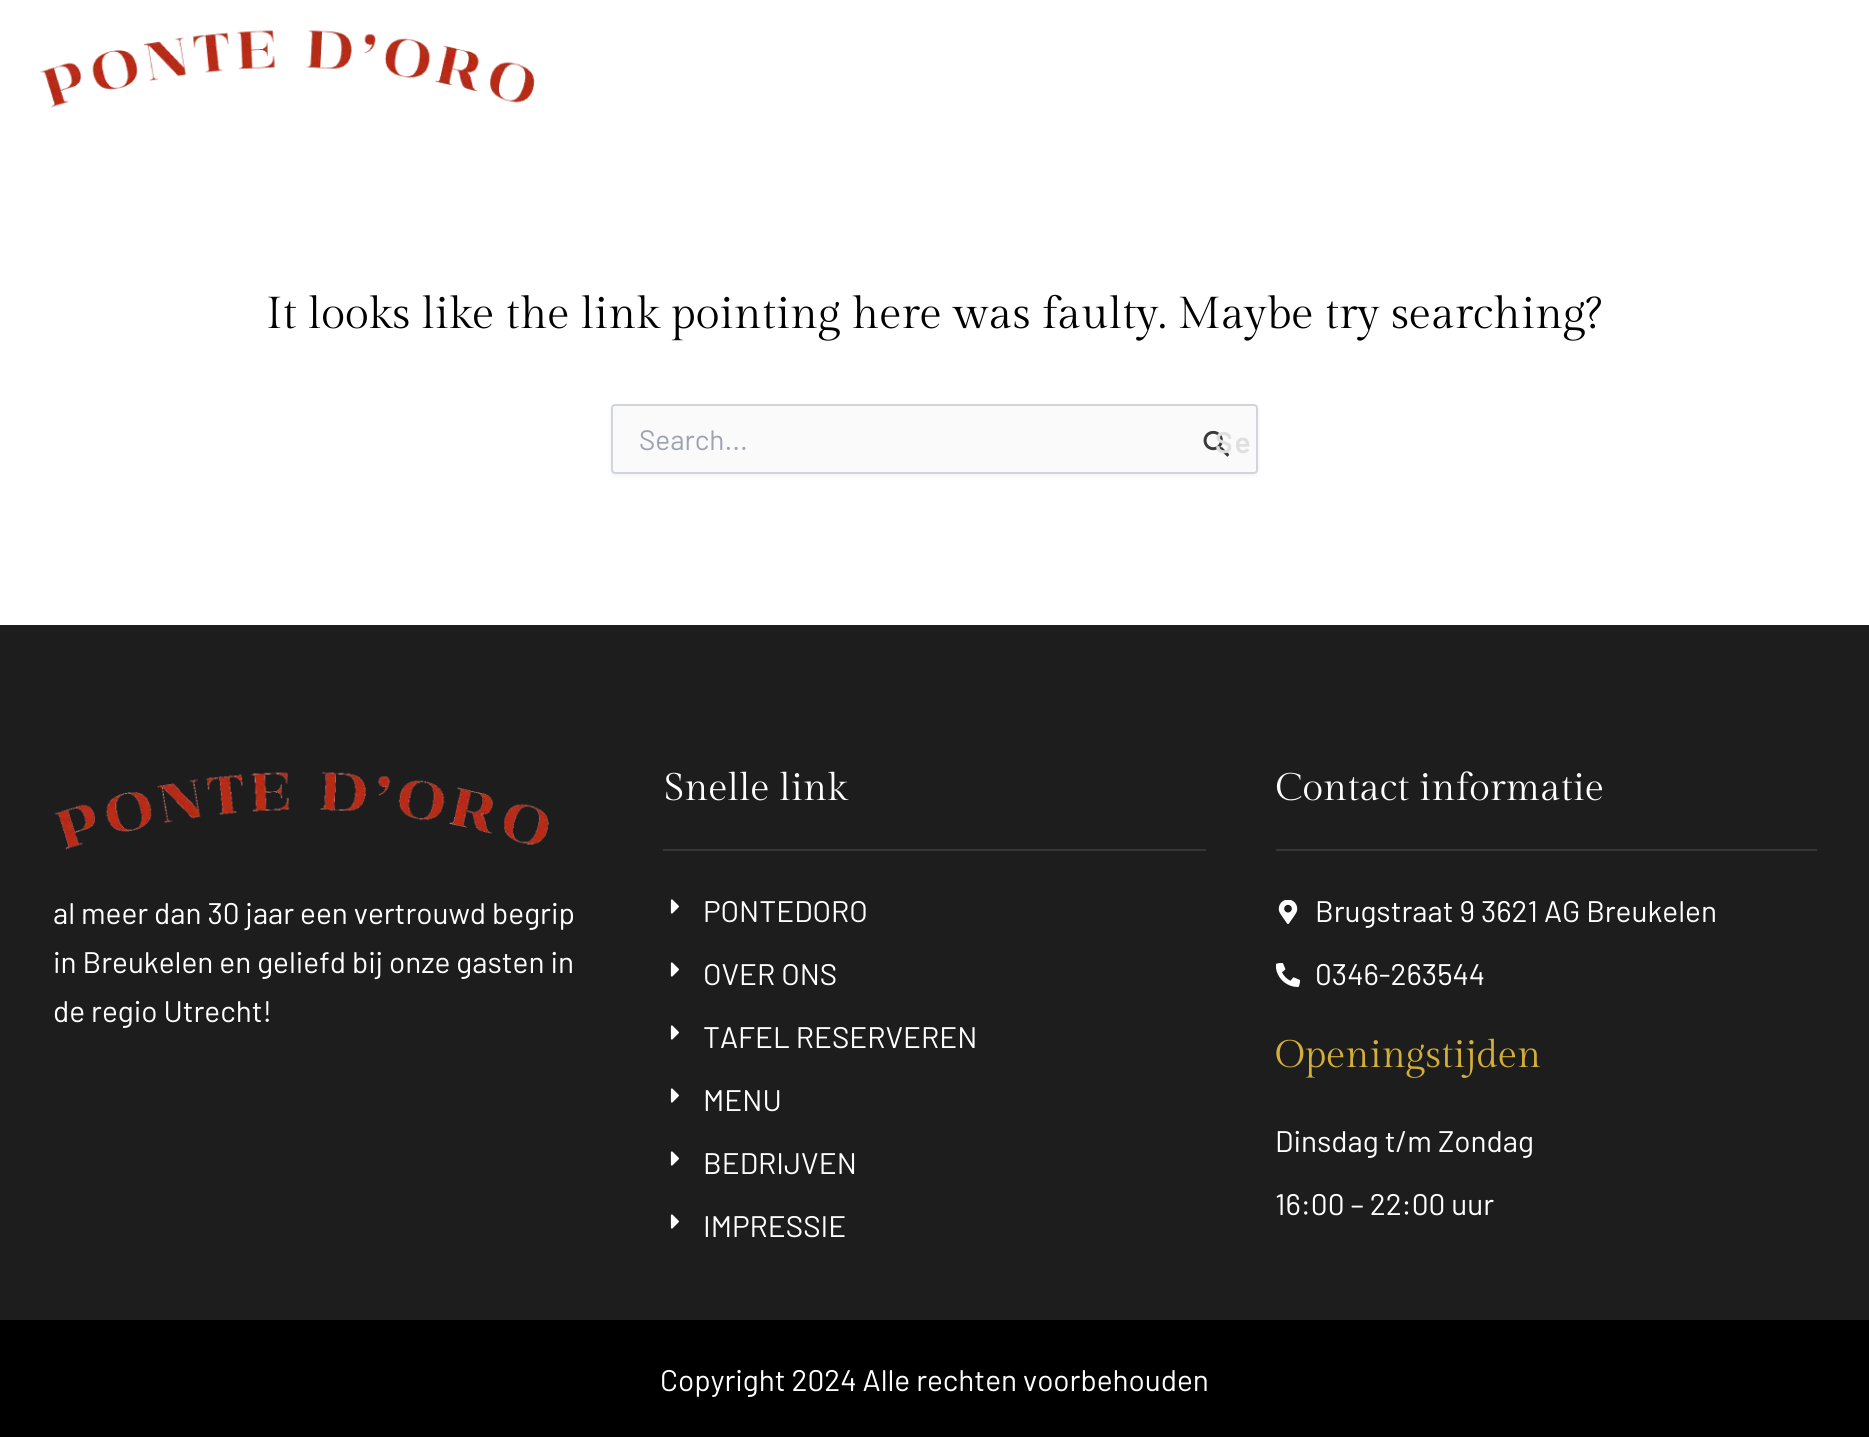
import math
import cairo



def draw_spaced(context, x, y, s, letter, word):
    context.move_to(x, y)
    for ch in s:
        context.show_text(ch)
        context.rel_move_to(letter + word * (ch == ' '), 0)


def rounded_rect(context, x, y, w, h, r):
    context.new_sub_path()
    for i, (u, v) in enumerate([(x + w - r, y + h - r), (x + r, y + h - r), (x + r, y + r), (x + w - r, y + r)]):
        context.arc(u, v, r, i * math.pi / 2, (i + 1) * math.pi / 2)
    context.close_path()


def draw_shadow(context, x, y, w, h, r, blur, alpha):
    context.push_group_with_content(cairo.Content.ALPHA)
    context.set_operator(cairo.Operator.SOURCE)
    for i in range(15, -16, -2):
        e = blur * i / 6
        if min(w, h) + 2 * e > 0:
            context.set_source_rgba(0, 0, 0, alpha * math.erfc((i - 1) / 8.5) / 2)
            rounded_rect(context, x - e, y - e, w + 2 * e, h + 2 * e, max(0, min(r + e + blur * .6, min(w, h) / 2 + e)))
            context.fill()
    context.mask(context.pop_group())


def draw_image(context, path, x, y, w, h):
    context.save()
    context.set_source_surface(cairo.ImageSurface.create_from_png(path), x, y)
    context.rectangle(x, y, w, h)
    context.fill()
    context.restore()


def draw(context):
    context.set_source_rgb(1, 1, 1)
    context.paint()
    draw_image(context, "images/1.png", 40, 30, 495, 78)
    context.set_source_rgb(0, 0, 0)
    draw_shadow(context, 611, 406, 647, 70, 4, 2, 0.05)
    context.set_source_rgb(250 / 255, 250 / 255, 250 / 255)
    rounded_rect(context, 612, 405, 645, 68, 3)
    context.fill_preserve()
    context.set_source_rgb(209 / 255, 213 / 255, 219 / 255)
    context.stroke()
    draw_image(context, "images/2.png", 1203, 431, 26, 26)
    context.set_source_rgb(29 / 255, 29 / 255, 29 / 255)
    context.rectangle(0, 625, 1869, 695)
    context.fill()
    draw_image(context, "images/3.png", 54, 771, 495, 79)
    context.set_source_rgb(54 / 255, 54 / 255, 54 / 255)
    context.rectangle(663, 849, 543, 2)
    context.fill()
    draw_image(context, "images/4.png", 670, 899, 9, 15)
    draw_image(context, "images/4.png", 670, 962, 9, 15)
    draw_image(context, "images/4.png", 670, 1025, 9, 15)
    draw_image(context, "images/4.png", 670, 1088, 9, 15)
    draw_image(context, "images/4.png", 670, 1151, 9, 15)
    draw_image(context, "images/4.png", 670, 1214, 9, 15)
    context.rectangle(1276, 849, 541, 2)
    context.fill()
    draw_image(context, "images/5.png", 1278, 900, 20, 24)
    draw_image(context, "images/6.png", 1276, 963, 24, 24)
    context.set_source_rgb(0, 0, 0)
    context.rectangle(0, 1320, 1869, 117)
    context.fill()
    context.select_font_face("Gilda Display")
    context.set_font_size(44.6)
    context.move_to(266, 328)
    context.show_text("It looks like the link pointing here was faulty. Maybe try searching?")
    context.select_font_face("Barlow")
    context.set_font_size(28)
    context.set_source_rgb(156 / 255, 163 / 255, 175 / 255)
    context.move_to(639, 450)
    context.show_text("Search...")
    context.select_font_face("Barlow SemiBold")
    context.set_font_size(29.75)
    context.set_source_rgb(223 / 255, 223 / 255, 223 / 255)
    draw_spaced(context, 1215, 453, "Se", 2, 0)
    context.select_font_face("Barlow")
    context.set_source_rgb(1, 1, 1)
    context.move_to(53, 924)
    context.show_text("al meer dan 30 jaar een vertrouwd begrip")
    context.move_to(53, 973)
    context.show_text("in Breukelen en geliefd bij onze gasten in")
    context.move_to(53, 1022)
    context.show_text("de regio Utrecht!")
    context.select_font_face("Gilda Display")
    context.set_font_size(38.5)
    context.move_to(664, 800)
    context.show_text("Snelle link")
    context.select_font_face("Barlow")
    context.set_font_size(29.75)
    context.move_to(703, 922)
    context.show_text("PONTEDORO")
    context.move_to(703, 985)
    context.show_text("OVER ONS")
    context.move_to(703, 1048)
    context.show_text("TAFEL RESERVEREN")
    context.move_to(703, 1111)
    context.show_text("MENU")
    context.move_to(703, 1174)
    context.show_text("BEDRIJVEN")
    context.move_to(703, 1237)
    context.show_text("IMPRESSIE")
    context.select_font_face("Gilda Display")
    context.set_font_size(38.5)
    context.move_to(1275, 800)
    context.show_text("Contact informatie")
    context.select_font_face("Barlow")
    context.set_font_size(29.75)
    context.move_to(1315, 922)
    context.show_text("Brugstraat 9 3621 AG Breukelen")
    context.move_to(1315, 985)
    context.show_text("0346-263544")
    context.select_font_face("Gilda Display")
    context.set_font_size(38.5)
    context.set_source_rgb(212 / 255, 175 / 255, 56 / 255)
    context.move_to(1275, 1067)
    context.show_text("Openingstijden")
    context.select_font_face("Barlow")
    context.set_font_size(29.75)
    context.set_source_rgb(1, 1, 1)
    context.move_to(1275, 1152)
    context.show_text("Dinsdag t/m Zondag")
    context.move_to(1275, 1215)
    context.show_text("16:00 – 22:00 uur")
    context.move_to(660, 1391)
    context.show_text("Copyright 2024 Alle rechten voorbehouden")


surface = cairo.ImageSurface(cairo.Format.RGB24, 1869, 1437)
context = cairo.Context(surface)
options = cairo.FontOptions()
options.set_hint_metrics(cairo.HintMetrics.OFF)
options.set_hint_style(cairo.HintStyle.NONE)
context.set_font_options(options)
context.set_miter_limit(4)
draw(context)
surface.write_to_png("out.png")
